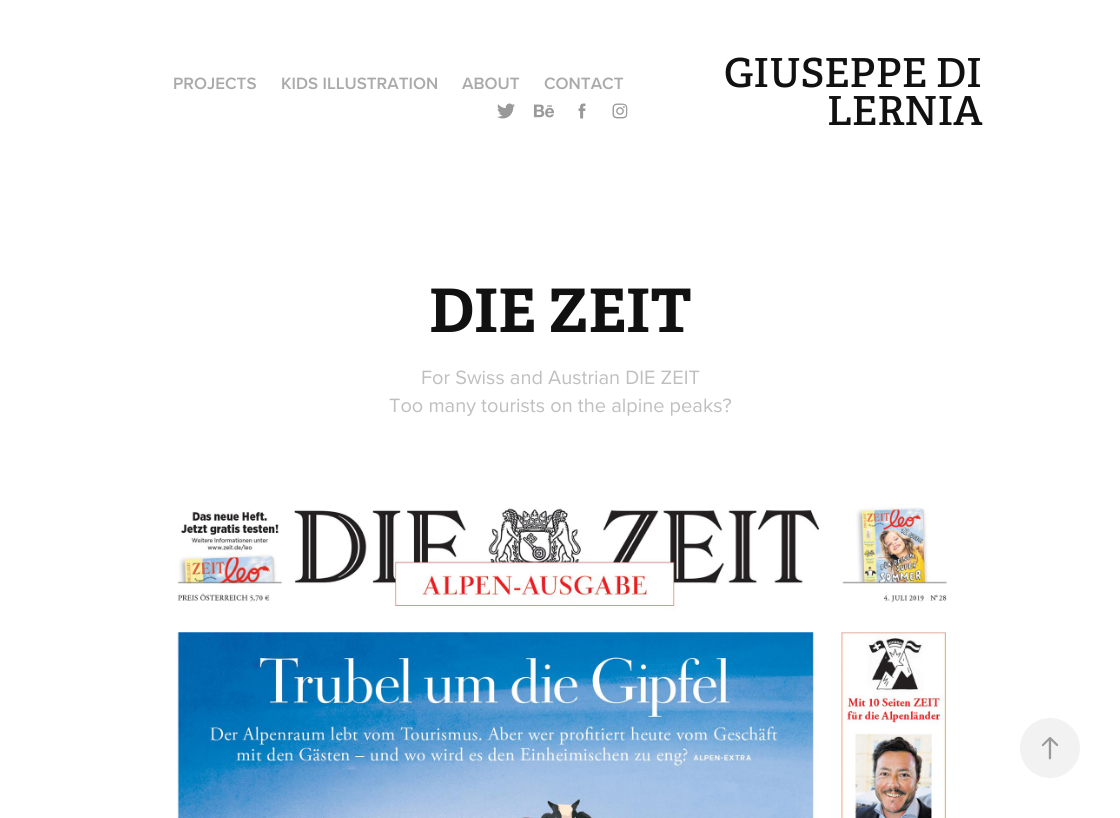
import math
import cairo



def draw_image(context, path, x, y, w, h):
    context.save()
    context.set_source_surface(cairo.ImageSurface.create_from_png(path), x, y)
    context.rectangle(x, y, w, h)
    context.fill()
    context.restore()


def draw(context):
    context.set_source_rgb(1, 1, 1)
    context.paint()
    draw_image(context, "images/1.png", 497, 103, 18, 16)
    draw_image(context, "images/2.png", 533, 104, 21, 14)
    draw_image(context, "images/3.png", 578, 103, 8, 16)
    draw_image(context, "images/4.png", 612, 103, 16, 16)
    draw_image(context, "images/5.png", 177, 507, 770, 311)
    context.set_source_rgb(242 / 255, 242 / 255, 242 / 255)
    context.arc(1050, 748, 30, 0, 2 * math.pi)
    context.fill()
    draw_image(context, "images/6.png", 1041, 737, 18, 23)
    context.select_font_face("Proxima Nova SemiBold")
    context.set_font_size(17)
    context.set_source_rgb(170 / 255, 170 / 255, 170 / 255)
    context.move_to(173, 89)
    context.show_text("PROJECTS")
    context.move_to(281, 89)
    context.show_text("KIDS ILLUSTRATION")
    context.move_to(462, 89)
    context.show_text("ABOUT")
    context.move_to(544, 89)
    context.show_text("CONTACT")
    context.select_font_face("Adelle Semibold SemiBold")
    context.set_font_size(40)
    context.set_source_rgb(17 / 255, 17 / 255, 17 / 255)
    context.move_to(724, 87)
    context.show_text("GIUSEPPE DI")
    context.move_to(827, 125)
    context.show_text("LERNIA")
    context.select_font_face("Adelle", cairo.FontSlant.NORMAL, cairo.FontWeight.BOLD)
    context.set_font_size(60)
    context.move_to(429, 332)
    context.show_text("DIE ZEIT")
    context.select_font_face("Proxima Nova")
    context.set_font_size(20)
    context.set_source_rgb(191 / 255, 191 / 255, 191 / 255)
    context.move_to(421, 384)
    context.show_text("For Swiss and Austrian DIE ZEIT")
    context.move_to(389, 412)
    context.show_text("Too many tourists on the alpine peaks?")


surface = cairo.ImageSurface(cairo.Format.RGB24, 1120, 818)
context = cairo.Context(surface)
options = cairo.FontOptions()
options.set_hint_metrics(cairo.HintMetrics.OFF)
options.set_hint_style(cairo.HintStyle.NONE)
context.set_font_options(options)
context.set_miter_limit(4)
draw(context)
surface.write_to_png("out.png")
